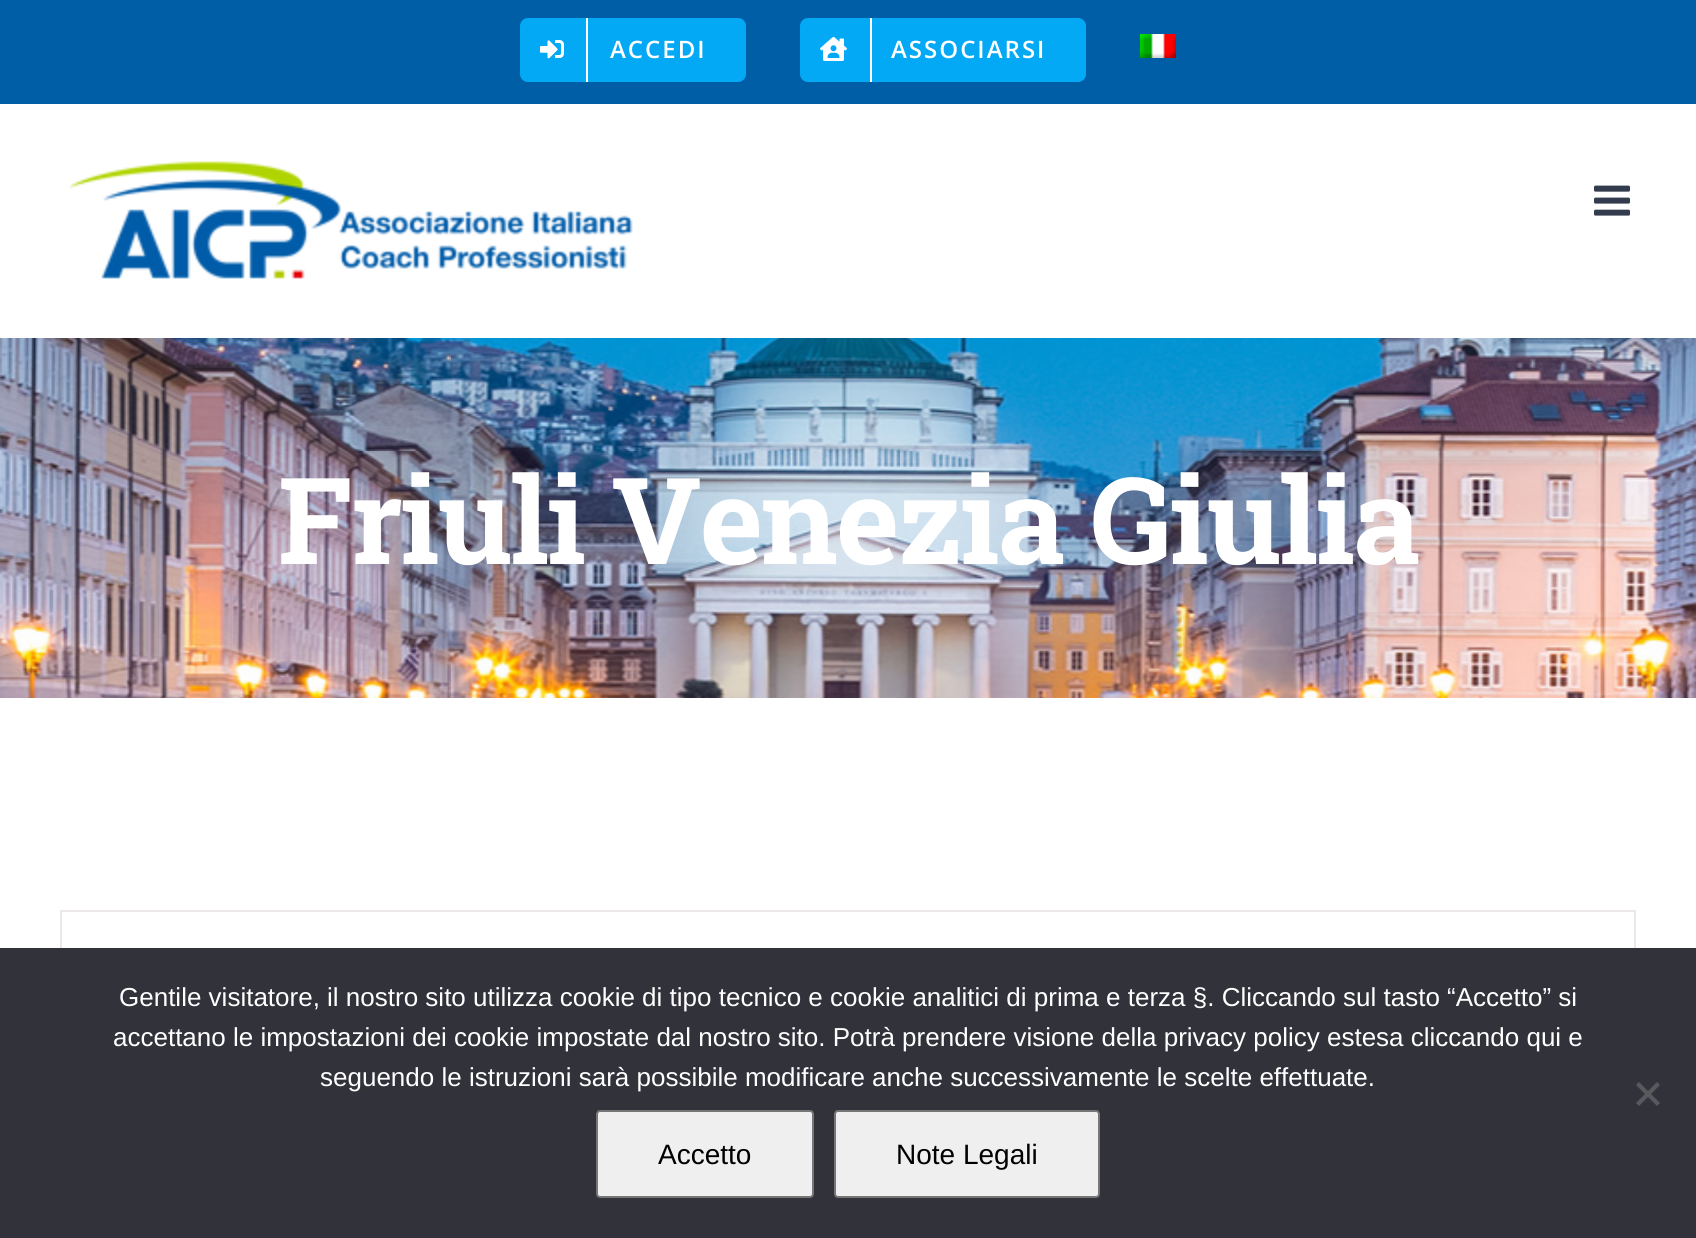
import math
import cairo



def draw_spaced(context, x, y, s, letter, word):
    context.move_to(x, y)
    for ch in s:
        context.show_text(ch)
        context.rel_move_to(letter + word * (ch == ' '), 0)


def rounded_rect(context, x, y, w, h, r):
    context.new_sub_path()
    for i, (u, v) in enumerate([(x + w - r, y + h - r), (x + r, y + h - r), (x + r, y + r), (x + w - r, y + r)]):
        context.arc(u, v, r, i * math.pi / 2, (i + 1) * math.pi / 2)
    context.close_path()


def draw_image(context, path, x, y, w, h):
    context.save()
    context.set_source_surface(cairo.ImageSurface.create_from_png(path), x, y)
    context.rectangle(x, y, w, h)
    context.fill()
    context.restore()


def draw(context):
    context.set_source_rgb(1, 1, 1)
    context.paint()
    context.set_source_rgb(0, 94 / 255, 167 / 255)
    context.rectangle(0, 0, 1696, 104)
    context.fill()
    context.set_source_rgb(3 / 255, 169 / 255, 244 / 255)
    rounded_rect(context, 520, 18, 226, 64, 8)
    context.fill()
    context.set_source_rgb(1, 1, 1)
    context.rectangle(586, 18, 2, 64)
    context.fill()
    draw_image(context, "images/1.png", 540, 40, 24, 19)
    context.set_source_rgb(3 / 255, 169 / 255, 244 / 255)
    rounded_rect(context, 800, 18, 286, 64, 8)
    context.fill()
    context.set_source_rgb(1, 1, 1)
    context.rectangle(870, 18, 2, 64)
    context.fill()
    draw_image(context, "images/2.png", 820, 37, 27, 24)
    draw_image(context, "images/3.png", 1140, 34, 36, 24)
    draw_image(context, "images/4.png", 69, 161, 564, 118)
    draw_image(context, "images/5.png", 1594, 185, 36, 31)
    draw_image(context, "images/6.png", 0, 338, 1696, 360)
    context.rectangle(61, 911, 1574, 108)
    context.set_source_rgb(237 / 255, 232 / 255, 232 / 255)
    context.stroke()
    context.set_source_rgb(50 / 255, 50 / 255, 58 / 255)
    context.rectangle(0, 948, 1696, 290)
    context.fill()
    context.set_source_rgb(89 / 255, 89 / 255, 93 / 255)
    context.new_path()
    context.move_to(1657, 1082)
    context.line_to(1660, 1085)
    context.line_to(1639, 1106)
    context.line_to(1636, 1103)
    context.close_path()
    context.fill()
    context.new_path()
    context.move_to(1636, 1085)
    context.line_to(1639, 1082)
    context.line_to(1660, 1103)
    context.line_to(1657, 1106)
    context.close_path()
    context.fill()
    context.set_source_rgb(239 / 255, 239 / 255, 239 / 255)
    rounded_rect(context, 597, 1111, 216, 86, 3)
    context.fill_preserve()
    context.set_source_rgb(118 / 255, 118 / 255, 118 / 255)
    context.stroke()
    context.set_source_rgb(239 / 255, 239 / 255, 239 / 255)
    rounded_rect(context, 835, 1111, 264, 86, 3)
    context.fill_preserve()
    context.set_source_rgb(118 / 255, 118 / 255, 118 / 255)
    context.stroke()
    context.select_font_face("Open Sans SemiBold")
    context.set_font_size(24)
    context.set_source_rgb(1, 1, 1)
    draw_spaced(context, 610, 58, "ACCEDI", 2, 0)
    draw_spaced(context, 891, 58, "ASSOCIARSI", 2, 0)
    context.select_font_face("Roboto Slab", cairo.FontSlant.NORMAL, cairo.FontWeight.BOLD)
    context.set_font_size(120.5)
    draw_spaced(context, 278, 564, "Friuli Venezia Giulia", -2, 0)
    context.select_font_face("Liberation Sans")
    context.set_font_size(26)
    context.move_to(119, 1006)
    context.show_text("Gentile visitatore, il nostro sito utilizza cookie di tipo tecnico e cookie analitici di prima e terza §. Cliccando sul tasto “Accetto” si")
    context.move_to(113, 1046)
    context.show_text("accettano le impostazioni dei cookie impostate dal nostro sito. Potrà prendere visione della privacy policy estesa cliccando qui e")
    context.move_to(320, 1086)
    context.show_text("seguendo le istruzioni sarà possibile modificare anche successivamente le scelte effettuate.")
    context.set_font_size(28)
    context.set_source_rgb(0, 0, 0)
    context.move_to(658, 1164)
    context.show_text("Accetto")
    context.move_to(896, 1164)
    context.show_text("Note Legali")


surface = cairo.ImageSurface(cairo.Format.RGB24, 1696, 1238)
context = cairo.Context(surface)
options = cairo.FontOptions()
options.set_hint_metrics(cairo.HintMetrics.OFF)
options.set_hint_style(cairo.HintStyle.NONE)
context.set_font_options(options)
context.set_miter_limit(4)
draw(context)
surface.write_to_png("out.png")
